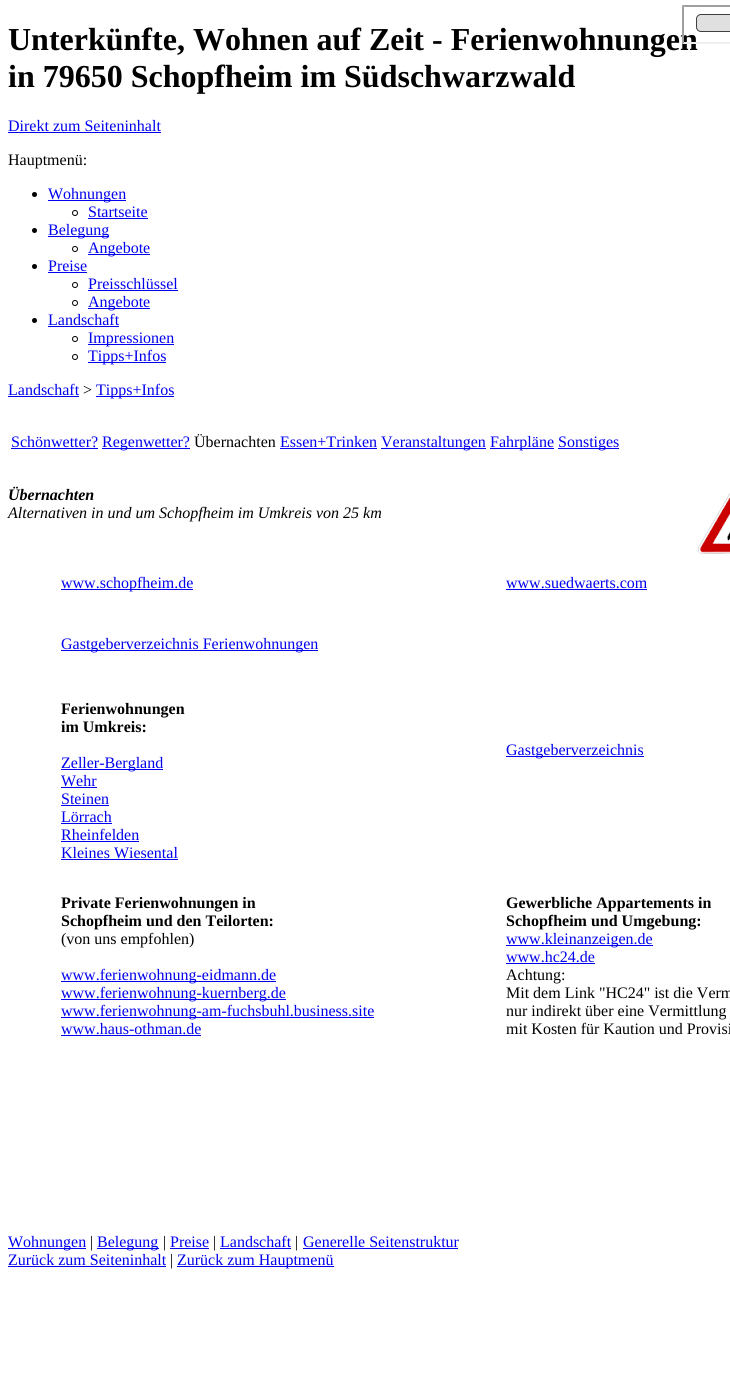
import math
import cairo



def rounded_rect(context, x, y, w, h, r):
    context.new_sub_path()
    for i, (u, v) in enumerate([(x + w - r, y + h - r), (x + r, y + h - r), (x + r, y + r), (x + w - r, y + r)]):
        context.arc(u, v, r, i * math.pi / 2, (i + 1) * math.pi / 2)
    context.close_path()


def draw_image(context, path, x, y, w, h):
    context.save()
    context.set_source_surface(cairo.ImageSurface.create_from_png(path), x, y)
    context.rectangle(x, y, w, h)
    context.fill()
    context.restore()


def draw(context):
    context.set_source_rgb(1, 1, 1)
    context.paint()
    context.set_source_rgb(159 / 255, 159 / 255, 159 / 255)
    context.new_path()
    context.move_to(682, 5)
    context.line_to(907, 5)
    context.line_to(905, 7)
    context.line_to(684, 7)
    context.close_path()
    context.fill()
    context.set_source_rgb(0, 0, 238 / 255)
    context.rectangle(8, 132, 153, 1)
    context.fill()
    context.set_source_rgb(0, 0, 0)
    context.arc(34.5, 194.5, 2.5, 0, 2 * math.pi)
    context.fill()
    context.set_source_rgb(0, 0, 238 / 255)
    context.rectangle(48, 200, 78, 1)
    context.fill()
    context.arc(75, 213, 2.5, 0, 2 * math.pi)
    context.set_source_rgb(0, 0, 0)
    context.set_line_width(1)
    context.stroke()
    context.set_source_rgb(0, 0, 238 / 255)
    context.rectangle(88, 218, 60, 1)
    context.fill()
    context.set_source_rgb(0, 0, 0)
    context.arc(34.5, 230.5, 2.5, 0, 2 * math.pi)
    context.fill()
    context.set_source_rgb(0, 0, 238 / 255)
    context.rectangle(48, 236, 61, 1)
    context.fill()
    context.arc(75, 249, 2.5, 0, 2 * math.pi)
    context.set_source_rgb(0, 0, 0)
    context.stroke()
    context.set_source_rgb(0, 0, 238 / 255)
    context.rectangle(88, 254, 62, 1)
    context.fill()
    context.set_source_rgb(0, 0, 0)
    context.arc(34.5, 266.5, 2.5, 0, 2 * math.pi)
    context.fill()
    context.set_source_rgb(0, 0, 238 / 255)
    context.rectangle(48, 272, 39, 1)
    context.fill()
    context.arc(75, 285, 2.5, 0, 2 * math.pi)
    context.set_source_rgb(0, 0, 0)
    context.stroke()
    context.set_source_rgb(0, 0, 238 / 255)
    context.rectangle(88, 290, 90, 1)
    context.fill()
    context.arc(75, 303, 2.5, 0, 2 * math.pi)
    context.set_source_rgb(0, 0, 0)
    context.stroke()
    context.set_source_rgb(0, 0, 238 / 255)
    context.rectangle(88, 308, 62, 1)
    context.fill()
    context.set_source_rgb(0, 0, 0)
    context.arc(34.5, 320.5, 2.5, 0, 2 * math.pi)
    context.fill()
    context.set_source_rgb(0, 0, 238 / 255)
    context.rectangle(48, 326, 71, 1)
    context.fill()
    context.arc(75, 339, 2.5, 0, 2 * math.pi)
    context.set_source_rgb(0, 0, 0)
    context.stroke()
    context.set_source_rgb(0, 0, 238 / 255)
    context.rectangle(88, 344, 86, 1)
    context.fill()
    context.arc(75, 357, 2.5, 0, 2 * math.pi)
    context.set_source_rgb(0, 0, 0)
    context.stroke()
    context.set_source_rgb(0, 0, 238 / 255)
    context.rectangle(88, 362, 78, 1)
    context.fill()
    context.rectangle(8, 396, 71, 1)
    context.fill()
    context.rectangle(96, 396, 78, 1)
    context.fill()
    context.rectangle(11, 448, 87, 1)
    context.fill()
    context.rectangle(102, 448, 88, 1)
    context.fill()
    context.rectangle(280, 448, 97, 1)
    context.fill()
    context.rectangle(381, 448, 105, 1)
    context.fill()
    context.rectangle(490, 448, 64, 1)
    context.fill()
    context.rectangle(558, 448, 61, 1)
    context.fill()
    draw_image(context, "images/1.png", 698, 493, 32, 61)
    context.rectangle(61, 589, 132, 1)
    context.fill()
    context.rectangle(61, 650, 257, 1)
    context.fill()
    context.rectangle(61, 769, 102, 1)
    context.fill()
    context.rectangle(61, 787, 36, 1)
    context.fill()
    context.rectangle(61, 805, 48, 1)
    context.fill()
    context.rectangle(61, 823, 51, 1)
    context.fill()
    context.rectangle(61, 841, 78, 1)
    context.fill()
    context.rectangle(61, 859, 117, 1)
    context.fill()
    context.rectangle(506, 589, 141, 1)
    context.fill()
    context.rectangle(506, 756, 138, 1)
    context.fill()
    context.rectangle(61, 981, 215, 1)
    context.fill()
    context.rectangle(61, 999, 225, 1)
    context.fill()
    context.rectangle(61, 1017, 313, 1)
    context.fill()
    context.rectangle(61, 1035, 140, 1)
    context.fill()
    context.rectangle(506, 945, 147, 1)
    context.fill()
    context.rectangle(506, 963, 89, 1)
    context.fill()
    context.rectangle(8, 1248, 78, 1)
    context.fill()
    context.rectangle(97, 1248, 62, 1)
    context.fill()
    context.rectangle(170, 1248, 39, 1)
    context.fill()
    context.rectangle(220, 1248, 71, 1)
    context.fill()
    context.rectangle(303, 1248, 155, 1)
    context.fill()
    context.rectangle(8, 1266, 158, 1)
    context.fill()
    context.rectangle(177, 1266, 157, 1)
    context.fill()
    context.select_font_face("Liberation Serif", cairo.FontSlant.NORMAL, cairo.FontWeight.BOLD)
    context.set_font_size(32)
    context.set_source_rgb(0, 0, 0)
    context.move_to(8, 50)
    context.show_text("Unterkünfte, Wohnen auf Zeit - Ferienwohnungen")
    context.move_to(8, 87)
    context.show_text("in 79650 Schopfheim im Südschwarzwald")
    context.set_source_rgb(239 / 255, 239 / 255, 239 / 255)
    context.new_path()
    context.move_to(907, 44)
    context.line_to(682, 44)
    context.line_to(684, 42)
    context.line_to(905, 42)
    context.close_path()
    context.fill()
    context.set_source_rgb(159 / 255, 159 / 255, 159 / 255)
    context.new_path()
    context.move_to(682, 44)
    context.line_to(682, 5)
    context.line_to(684, 7)
    context.line_to(684, 42)
    context.close_path()
    context.fill()
    context.set_source_rgb(224 / 255, 224 / 255, 224 / 255)
    rounded_rect(context, 696.5, 14.5, 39, 17, 4.5)
    context.fill_preserve()
    context.set_source_rgb(64 / 255, 64 / 255, 64 / 255)
    context.stroke()
    context.select_font_face("Liberation Serif")
    context.set_font_size(16)
    context.set_source_rgb(0, 0, 238 / 255)
    context.move_to(8, 131)
    context.show_text("Direkt zum Seiteninhalt")
    context.set_source_rgb(0, 0, 0)
    context.move_to(8, 165)
    context.show_text("Hauptmenü:")
    context.set_source_rgb(0, 0, 238 / 255)
    context.move_to(48, 199)
    context.show_text("Wohnungen")
    context.move_to(88, 217)
    context.show_text("Startseite")
    context.move_to(48, 235)
    context.show_text("Belegung")
    context.move_to(88, 253)
    context.show_text("Angebote")
    context.move_to(48, 271)
    context.show_text("Preise")
    context.move_to(88, 289)
    context.show_text("Preisschlüssel")
    context.move_to(88, 307)
    context.show_text("Angebote")
    context.move_to(48, 325)
    context.show_text("Landschaft")
    context.move_to(88, 343)
    context.show_text("Impressionen")
    context.move_to(88, 361)
    context.show_text("Tipps+Infos")
    context.move_to(8, 395)
    context.show_text("Landschaft")
    context.set_source_rgb(0, 0, 0)
    context.move_to(83, 395)
    context.show_text(">")
    context.set_source_rgb(0, 0, 238 / 255)
    context.move_to(96, 395)
    context.show_text("Tipps+Infos")
    context.move_to(11, 447)
    context.show_text("Schönwetter?")
    context.move_to(102, 447)
    context.show_text("Regenwetter?")
    context.set_source_rgb(0, 0, 0)
    context.move_to(194, 447)
    context.show_text("Übernachten")
    context.set_source_rgb(0, 0, 238 / 255)
    context.move_to(280, 447)
    context.show_text("Essen+Trinken")
    context.move_to(381, 447)
    context.show_text("Veranstaltungen")
    context.move_to(490, 447)
    context.show_text("Fahrpläne")
    context.move_to(558, 447)
    context.show_text("Sonstiges")
    context.select_font_face("Liberation Serif", cairo.FontSlant.ITALIC, cairo.FontWeight.BOLD)
    context.set_source_rgb(0, 0, 0)
    context.move_to(8, 500)
    context.show_text("Übernachten")
    context.select_font_face("Liberation Serif", cairo.FontSlant.ITALIC)
    context.move_to(8, 518)
    context.show_text("Alternativen in und um Schopfheim im Umkreis von 25 km")
    context.select_font_face("Liberation Serif")
    context.set_source_rgb(0, 0, 238 / 255)
    context.move_to(61, 588)
    context.show_text("www.schopfheim.de")
    context.move_to(61, 649)
    context.show_text("Gastgeberverzeichnis Ferienwohnungen")
    context.select_font_face("Liberation Serif", cairo.FontSlant.NORMAL, cairo.FontWeight.BOLD)
    context.set_source_rgb(0, 0, 0)
    context.move_to(61, 714)
    context.show_text("Ferienwohnungen")
    context.move_to(61, 732)
    context.show_text("im Umkreis:")
    context.select_font_face("Liberation Serif")
    context.set_source_rgb(0, 0, 238 / 255)
    context.move_to(61, 768)
    context.show_text("Zeller-Bergland")
    context.move_to(61, 786)
    context.show_text("Wehr")
    context.move_to(61, 804)
    context.show_text("Steinen")
    context.move_to(61, 822)
    context.show_text("Lörrach")
    context.move_to(61, 840)
    context.show_text("Rheinfelden")
    context.move_to(61, 858)
    context.show_text("Kleines Wiesental")
    context.move_to(506, 588)
    context.show_text("www.suedwaerts.com")
    context.move_to(506, 755)
    context.show_text("Gastgeberverzeichnis")
    context.select_font_face("Liberation Serif", cairo.FontSlant.NORMAL, cairo.FontWeight.BOLD)
    context.set_source_rgb(0, 0, 0)
    context.move_to(61, 908)
    context.show_text("Private Ferienwohnungen in")
    context.move_to(61, 926)
    context.show_text("Schopfheim und den Teilorten:")
    context.select_font_face("Liberation Serif")
    context.move_to(61, 944)
    context.show_text("(von uns empfohlen)")
    context.set_source_rgb(0, 0, 238 / 255)
    context.move_to(61, 980)
    context.show_text("www.ferienwohnung-eidmann.de")
    context.move_to(61, 998)
    context.show_text("www.ferienwohnung-kuernberg.de")
    context.move_to(61, 1016)
    context.show_text("www.ferienwohnung-am-fuchsbuhl.business.site")
    context.move_to(61, 1034)
    context.show_text("www.haus-othman.de")
    context.select_font_face("Liberation Serif", cairo.FontSlant.NORMAL, cairo.FontWeight.BOLD)
    context.set_source_rgb(0, 0, 0)
    context.move_to(506, 908)
    context.show_text("Gewerbliche Appartements in")
    context.move_to(506, 926)
    context.show_text("Schopfheim und Umgebung:")
    context.select_font_face("Liberation Serif")
    context.set_source_rgb(0, 0, 238 / 255)
    context.move_to(506, 944)
    context.show_text("www.kleinanzeigen.de")
    context.move_to(506, 962)
    context.show_text("www.hc24.de")
    context.set_source_rgb(0, 0, 0)
    context.move_to(506, 980)
    context.show_text("Achtung:")
    context.move_to(506, 998)
    context.show_text("Mit dem Link \"HC24\" ist die Verm")
    context.move_to(506, 1016)
    context.show_text("nur indirekt über eine Vermittlung")
    context.move_to(506, 1034)
    context.show_text("mit Kosten für Kaution und Provisi")
    context.set_source_rgb(0, 0, 238 / 255)
    context.move_to(8, 1247)
    context.show_text("Wohnungen")
    context.set_source_rgb(0, 0, 0)
    context.move_to(90, 1247)
    context.show_text("|")
    context.set_source_rgb(0, 0, 238 / 255)
    context.move_to(97, 1247)
    context.show_text("Belegung")
    context.set_source_rgb(0, 0, 0)
    context.move_to(163, 1247)
    context.show_text("|")
    context.set_source_rgb(0, 0, 238 / 255)
    context.move_to(170, 1247)
    context.show_text("Preise")
    context.set_source_rgb(0, 0, 0)
    context.move_to(213, 1247)
    context.show_text("|")
    context.set_source_rgb(0, 0, 238 / 255)
    context.move_to(220, 1247)
    context.show_text("Landschaft")
    context.set_source_rgb(0, 0, 0)
    context.move_to(295, 1247)
    context.show_text("|")
    context.set_source_rgb(0, 0, 238 / 255)
    context.move_to(303, 1247)
    context.show_text("Generelle Seitenstruktur")
    context.move_to(8, 1265)
    context.show_text("Zurück zum Seiteninhalt")
    context.set_source_rgb(0, 0, 0)
    context.move_to(170, 1265)
    context.show_text("|")
    context.set_source_rgb(0, 0, 238 / 255)
    context.move_to(177, 1265)
    context.show_text("Zurück zum Hauptmenü")


surface = cairo.ImageSurface(cairo.Format.RGB24, 730, 1399)
context = cairo.Context(surface)
options = cairo.FontOptions()
options.set_hint_metrics(cairo.HintMetrics.OFF)
options.set_hint_style(cairo.HintStyle.NONE)
context.set_font_options(options)
context.set_miter_limit(4)
draw(context)
surface.write_to_png("out.png")
